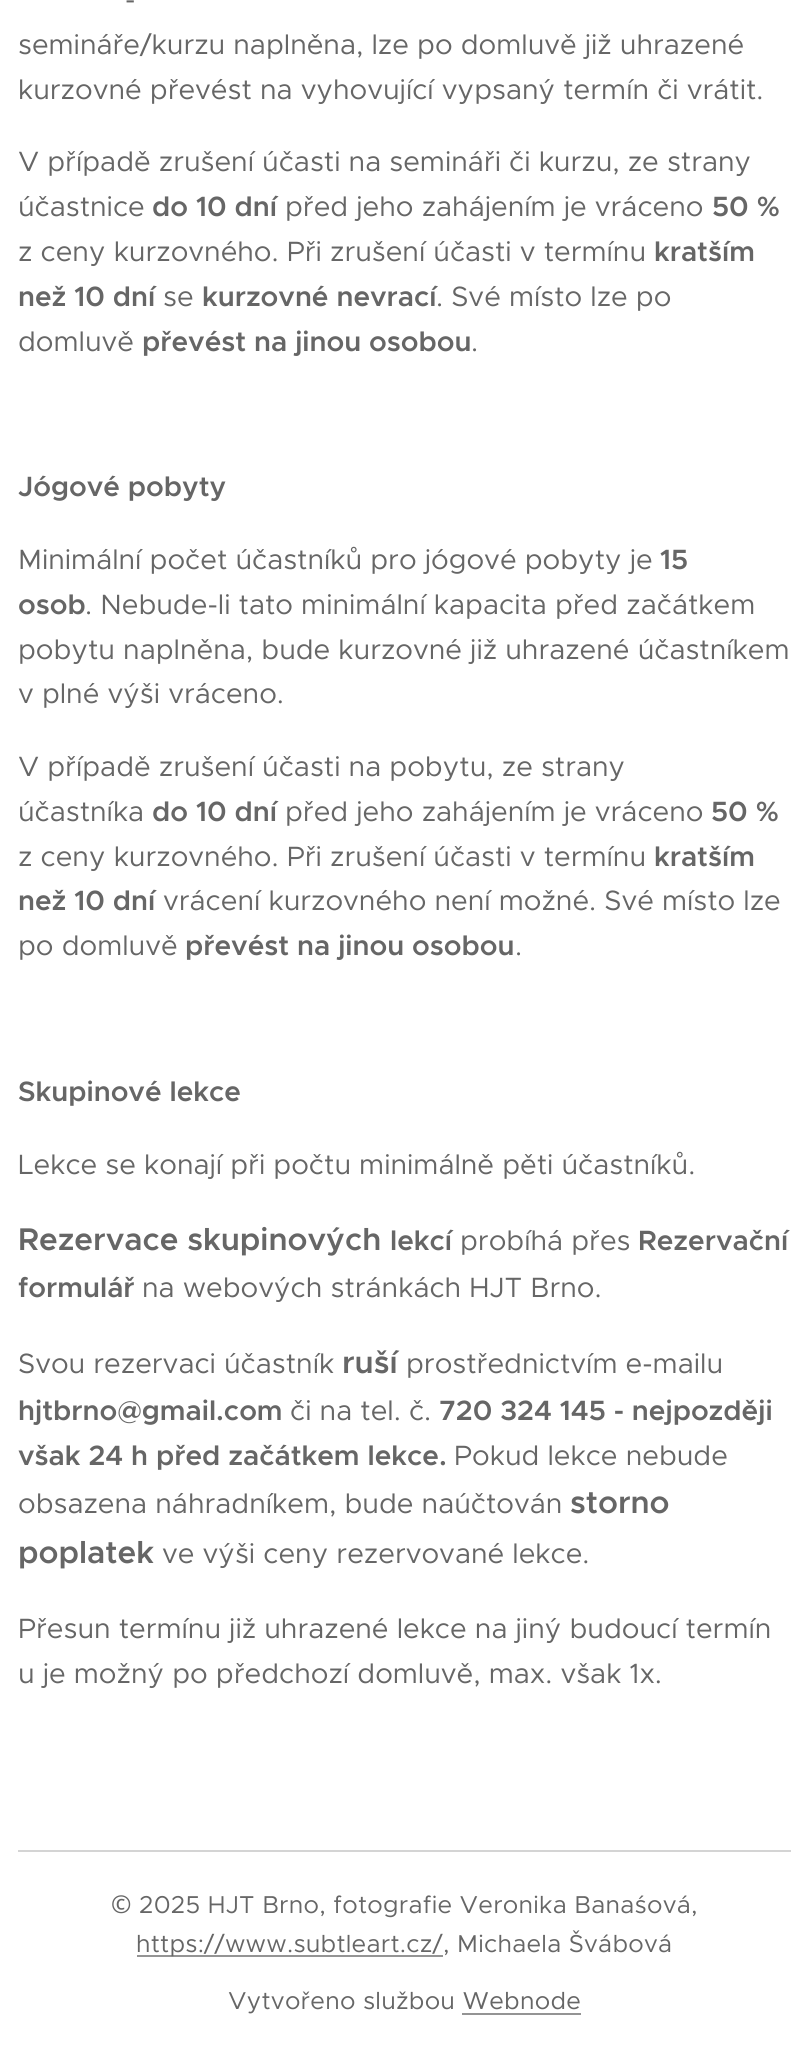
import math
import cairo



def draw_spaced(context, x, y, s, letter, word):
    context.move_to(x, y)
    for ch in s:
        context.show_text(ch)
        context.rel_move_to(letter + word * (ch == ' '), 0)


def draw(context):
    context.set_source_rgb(1, 1, 1)
    context.paint()
    context.set_source_rgb(212 / 255, 212 / 255, 212 / 255)
    context.rectangle(18, 1850, 773, 2)
    context.fill()
    context.set_source_rgb(148 / 255, 148 / 255, 148 / 255)
    context.rectangle(137, 1955, 306, 2)
    context.fill()
    context.select_font_face("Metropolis")
    context.set_font_size(28)
    context.set_source_rgb(102 / 255, 102 / 255, 102 / 255)
    context.move_to(125, 9)
    context.show_text("-")
    context.move_to(18, 54)
    context.show_text("semináře/kurzu naplněna, lze po domluvě již uhrazené")
    context.move_to(18, 99)
    context.show_text("kurzovné převést na vyhovující vypsaný termín či vrátit.")
    context.move_to(18, 171)
    context.show_text("V případě zrušení účasti na semináři či kurzu, ze strany")
    context.move_to(18, 216)
    context.show_text("účastnice")
    context.select_font_face("Metropolis SemiBold")
    context.move_to(152, 216)
    context.show_text("do 10 dní")
    context.select_font_face("Metropolis")
    context.move_to(285, 216)
    context.show_text("před jeho zahájením je vráceno")
    context.select_font_face("Metropolis SemiBold")
    context.move_to(712, 216)
    context.show_text("50 %")
    context.select_font_face("Metropolis")
    context.move_to(18, 261)
    context.show_text("z ceny kurzovného. Při zrušení účasti v termínu")
    context.select_font_face("Metropolis SemiBold")
    context.move_to(654, 261)
    context.show_text("kratším")
    context.move_to(18, 306)
    context.show_text("než 10 dní")
    context.select_font_face("Metropolis")
    context.move_to(163, 306)
    context.show_text("se")
    context.select_font_face("Metropolis SemiBold")
    context.move_to(202, 306)
    context.show_text("kurzovné nevrací")
    context.select_font_face("Metropolis")
    context.move_to(436, 306)
    context.show_text(". Své místo lze po")
    context.move_to(18, 351)
    context.show_text("domluvě")
    context.select_font_face("Metropolis SemiBold")
    context.move_to(142, 351)
    context.show_text("převést na jinou osobou")
    context.select_font_face("Metropolis")
    context.move_to(471, 351)
    context.show_text(".")
    context.select_font_face("Metropolis SemiBold")
    context.move_to(18, 496)
    context.show_text("Jógové pobyty")
    context.select_font_face("Metropolis")
    context.move_to(18, 569)
    context.show_text("Minimální počet účastníků pro jógové pobyty je")
    context.select_font_face("Metropolis SemiBold")
    context.move_to(660, 569)
    context.show_text("15")
    context.move_to(18, 614)
    context.show_text("osob")
    context.select_font_face("Metropolis")
    context.move_to(85, 614)
    context.show_text(". Nebude-li tato minimální kapacita před začátkem")
    context.move_to(18, 659)
    context.show_text("pobytu naplněna, bude kurzovné již uhrazené účastníkem")
    context.move_to(18, 703)
    context.show_text("v plné výši vráceno.")
    context.move_to(18, 776)
    context.show_text("V případě zrušení účasti na pobytu, ze strany")
    context.move_to(18, 821)
    context.show_text("účastníka")
    context.select_font_face("Metropolis SemiBold")
    context.move_to(152, 821)
    context.show_text("do 10 dní")
    context.select_font_face("Metropolis")
    context.move_to(285, 821)
    context.show_text("před jeho zahájením je vráceno")
    context.select_font_face("Metropolis SemiBold")
    context.move_to(711, 821)
    context.show_text("50 %")
    context.select_font_face("Metropolis")
    context.move_to(18, 866)
    context.show_text("z ceny kurzovného. Při zrušení účasti v termínu")
    context.select_font_face("Metropolis SemiBold")
    context.move_to(654, 866)
    context.show_text("kratším")
    context.move_to(18, 910)
    context.show_text("než 10 dní")
    context.select_font_face("Metropolis")
    context.move_to(163, 910)
    context.show_text("vrácení kurzovného není možné. Své místo lze")
    context.move_to(18, 955)
    context.show_text("po domluvě")
    context.select_font_face("Metropolis SemiBold")
    context.move_to(185, 955)
    context.show_text("převést na jinou osobou")
    context.select_font_face("Metropolis")
    context.move_to(515, 955)
    context.show_text(".")
    context.select_font_face("Metropolis SemiBold")
    context.move_to(18, 1101)
    context.show_text("Skupinové lekce")
    context.select_font_face("Metropolis")
    context.move_to(18, 1174)
    context.show_text("Lekce se konají při počtu minimálně pěti účastníků.")
    context.select_font_face("Metropolis SemiBold")
    context.set_font_size(31.5)
    context.move_to(18, 1250)
    context.show_text("Rezervace skupinových")
    context.set_font_size(28)
    context.move_to(390, 1250)
    context.show_text("lekcí")
    context.select_font_face("Metropolis")
    context.move_to(460, 1250)
    context.show_text("probíhá přes")
    context.select_font_face("Metropolis SemiBold")
    context.move_to(638, 1250)
    context.show_text("Rezervační")
    context.move_to(18, 1297)
    context.show_text("formulář")
    context.select_font_face("Metropolis")
    context.move_to(142, 1297)
    context.show_text("na webových stránkách HJT Brno.")
    context.move_to(18, 1373)
    context.show_text("Svou rezervaci účastník")
    context.select_font_face("Metropolis SemiBold")
    context.set_font_size(31.5)
    context.move_to(342, 1373)
    context.show_text("ruší")
    context.select_font_face("Metropolis")
    context.set_font_size(28)
    context.move_to(406, 1373)
    context.show_text("prostřednictvím e-mailu")
    context.select_font_face("Metropolis SemiBold")
    context.move_to(18, 1420)
    context.show_text("hjtbrno@gmail.com")
    context.select_font_face("Metropolis")
    context.move_to(290, 1420)
    context.show_text("či na tel. č.")
    context.select_font_face("Metropolis SemiBold")
    context.move_to(439, 1420)
    context.show_text("720 324 145 - nejpozději")
    context.move_to(18, 1465)
    context.show_text("však 24 h před začátkem lekce.")
    context.select_font_face("Metropolis")
    context.move_to(454, 1465)
    context.show_text("Pokud lekce nebude")
    context.move_to(18, 1513)
    context.show_text("obsazena náhradníkem, bude naúčtován")
    context.select_font_face("Metropolis SemiBold")
    context.set_font_size(31.5)
    context.move_to(570, 1513)
    context.show_text("storno")
    context.move_to(18, 1563)
    context.show_text("poplatek")
    context.select_font_face("Metropolis")
    context.set_font_size(28)
    context.move_to(162, 1563)
    context.show_text("ve výši ceny rezervované lekce.")
    context.move_to(18, 1638)
    context.show_text("Přesun termínu již uhrazené lekce na jiný budoucí termín")
    context.move_to(18, 1683)
    context.show_text("u je možný po předchozí domluvě, max. však 1x.")
    context.select_font_face("Noto Sans")
    context.set_font_size(24.5)
    draw_spaced(context, 111, 1913, "©", 0.25, 0)
    context.select_font_face("Metropolis")
    draw_spaced(context, 139, 1913, "2025 HJT Brno, fotografie Veronika Banaśová,", 0.25, 0)
    draw_spaced(context, 136, 1952, "https://www.subtleart.cz/, Michaela Švábová", 0.25, 0)
    draw_spaced(context, 228, 2009, "Vytvořeno službou Webnode", 0.25, 0)
    context.set_source_rgb(148 / 255, 148 / 255, 148 / 255)
    context.rectangle(462, 2013, 119, 2)
    context.fill()


surface = cairo.ImageSurface(cairo.Format.RGB24, 808, 2053)
context = cairo.Context(surface)
options = cairo.FontOptions()
options.set_hint_metrics(cairo.HintMetrics.OFF)
options.set_hint_style(cairo.HintStyle.NONE)
context.set_font_options(options)
context.set_miter_limit(4)
draw(context)
surface.write_to_png("out.png")
